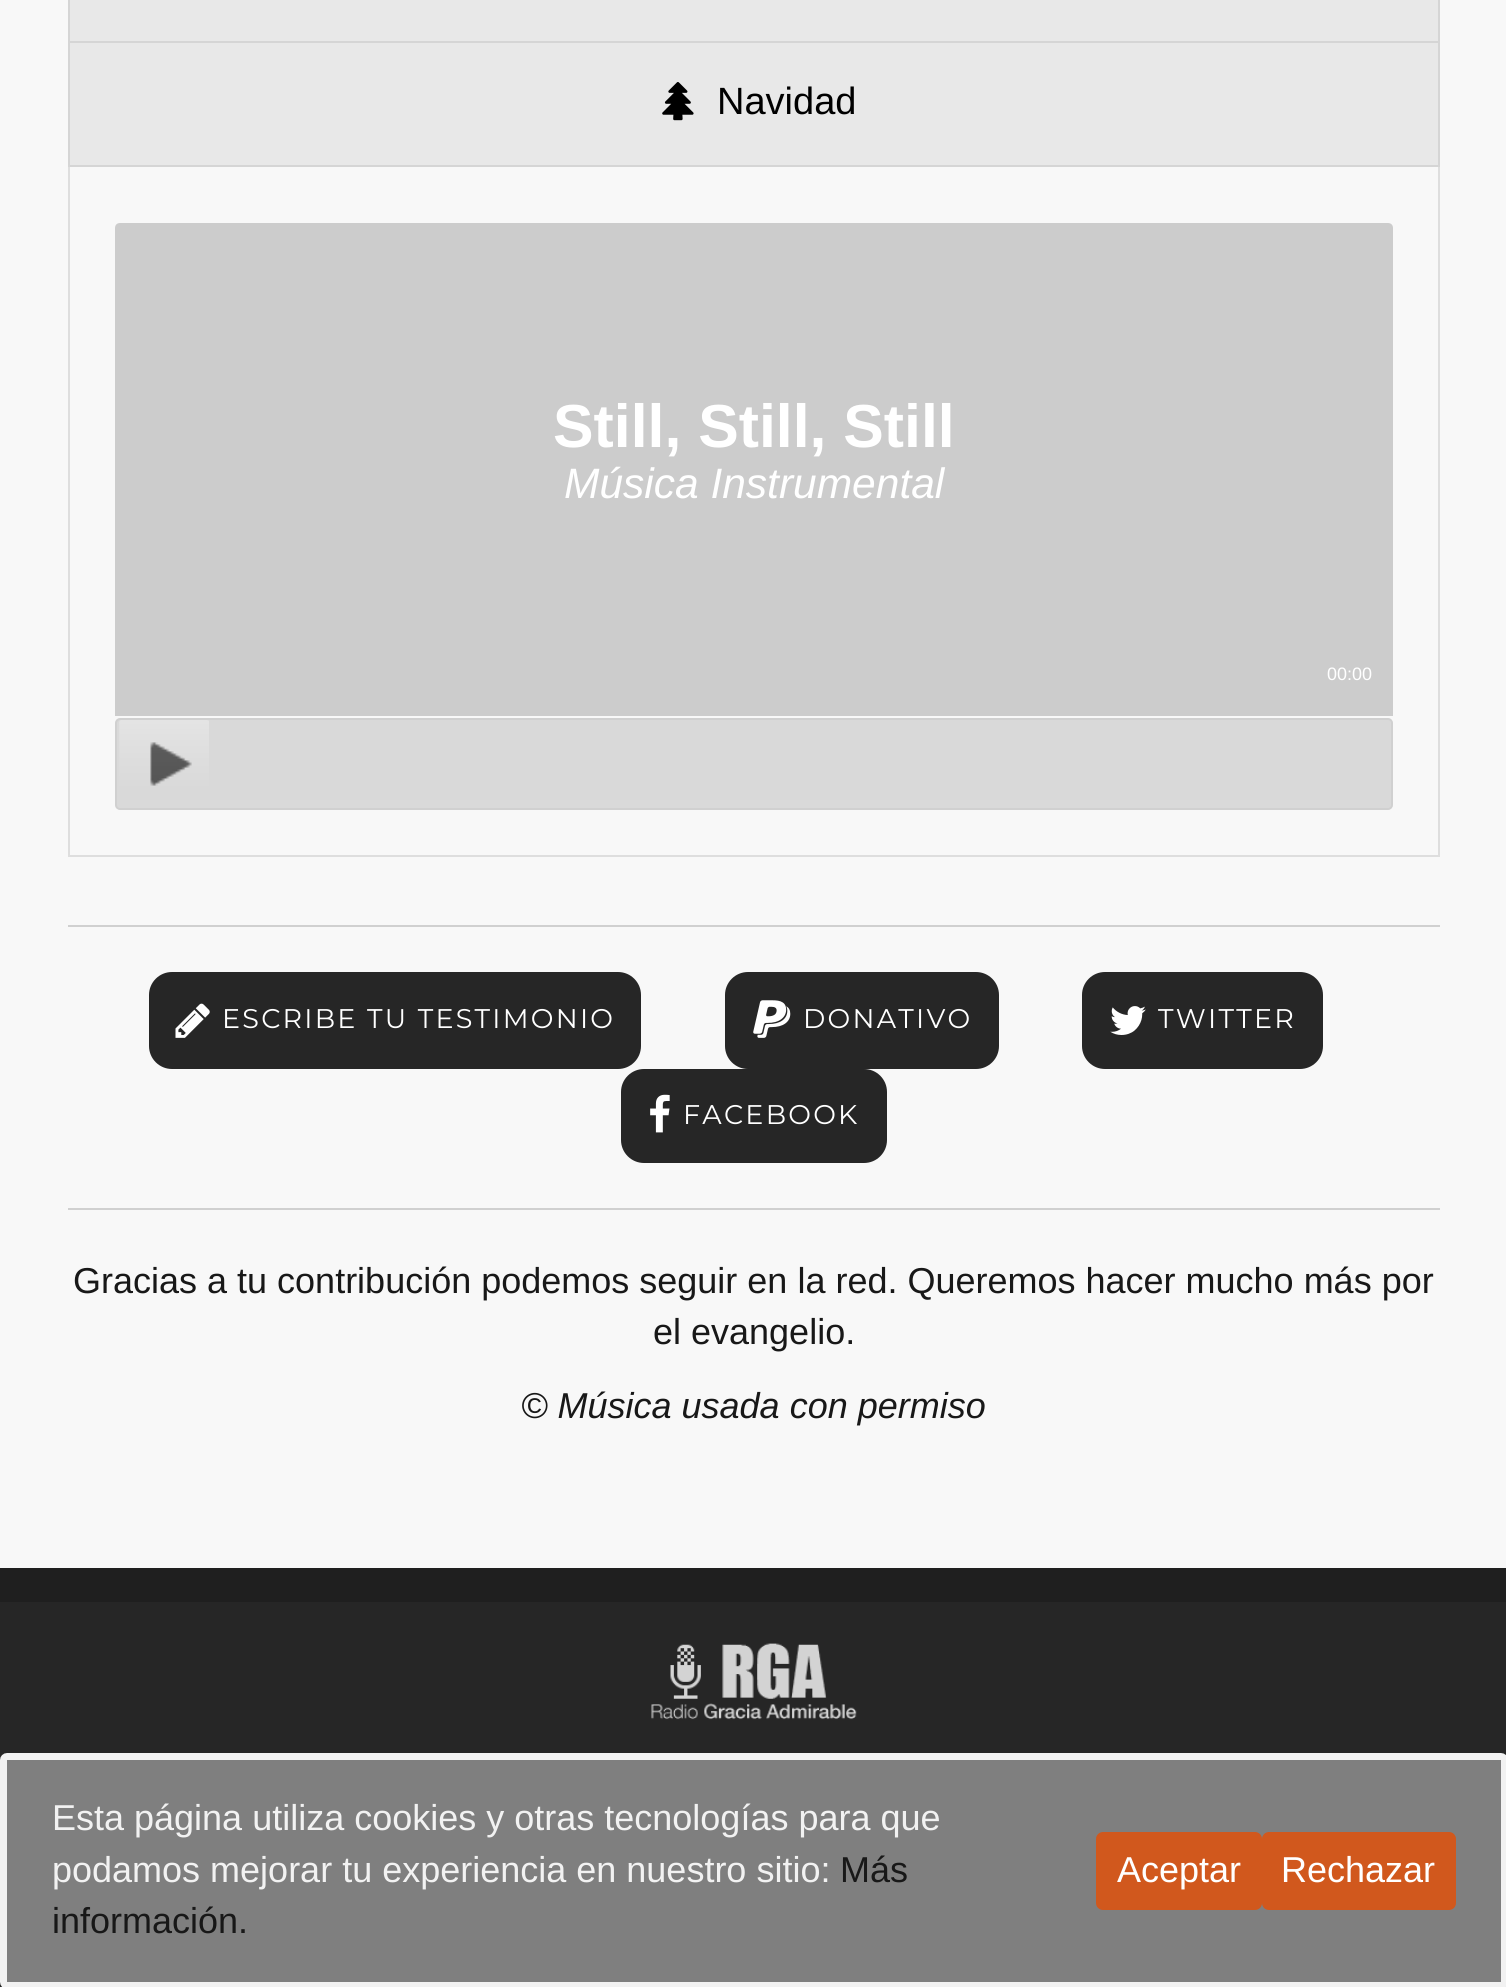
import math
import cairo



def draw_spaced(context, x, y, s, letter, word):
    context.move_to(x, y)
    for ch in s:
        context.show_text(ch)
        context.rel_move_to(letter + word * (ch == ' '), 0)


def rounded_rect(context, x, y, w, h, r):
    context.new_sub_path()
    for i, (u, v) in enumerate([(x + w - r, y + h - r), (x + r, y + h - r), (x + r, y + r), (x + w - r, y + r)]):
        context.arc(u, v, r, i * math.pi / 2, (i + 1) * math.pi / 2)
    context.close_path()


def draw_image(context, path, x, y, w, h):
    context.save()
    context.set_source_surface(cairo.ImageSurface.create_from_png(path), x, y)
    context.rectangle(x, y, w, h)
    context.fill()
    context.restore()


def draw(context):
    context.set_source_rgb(248 / 255, 248 / 255, 248 / 255)
    context.paint()
    context.set_source_rgb(232 / 255, 232 / 255, 232 / 255)
    context.rectangle(69, -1, 1370, 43)
    context.fill_preserve()
    context.set_source_rgb(213 / 255, 213 / 255, 213 / 255)
    context.stroke()
    context.rectangle(69, 165, 1370, 691)
    context.set_source_rgb(222 / 255, 222 / 255, 222 / 255)
    context.stroke()
    context.set_source_rgb(232 / 255, 232 / 255, 232 / 255)
    context.rectangle(69, 42, 1370, 124)
    context.fill_preserve()
    context.set_source_rgb(213 / 255, 213 / 255, 213 / 255)
    context.stroke()
    draw_image(context, "images/1.png", 662, 82, 32, 39)
    context.set_source_rgb(204 / 255, 204 / 255, 204 / 255)
    context.new_path()
    context.move_to(120, 223)
    context.line_to(1388, 223)
    context.curve_to(1391, 223, 1393, 225, 1393, 228)
    context.line_to(1393, 718)
    context.line_to(115, 718)
    context.line_to(115, 228)
    context.curve_to(115, 225, 117, 223, 120, 223)
    context.close_path()
    context.fill()
    context.set_source_rgb(248 / 255, 248 / 255, 248 / 255)
    context.rectangle(115, 716, 1278, 2)
    context.fill()
    context.set_source_rgb(217 / 255, 217 / 255, 217 / 255)
    rounded_rect(context, 116, 719, 1276, 90, 4)
    context.fill_preserve()
    context.set_source_rgb(208 / 255, 208 / 255, 208 / 255)
    context.stroke()
    draw_image(context, "images/2.png", 119, 720, 90, 66)
    context.rectangle(68, 925, 1372, 2)
    context.fill()
    context.set_source_rgb(38 / 255, 38 / 255, 38 / 255)
    rounded_rect(context, 149, 972, 492, 97, 23)
    context.fill()
    draw_image(context, "images/3.png", 175, 1003, 35, 35)
    rounded_rect(context, 725, 972, 274, 97, 23)
    context.fill()
    draw_image(context, "images/4.png", 753, 1000, 38, 38)
    rounded_rect(context, 1082, 972, 241, 97, 23)
    context.fill()
    draw_image(context, "images/5.png", 1110, 1006, 36, 29)
    rounded_rect(context, 621, 1069, 266, 94, 23)
    context.fill()
    draw_image(context, "images/6.png", 650, 1094, 20, 39)
    context.set_source_rgb(208 / 255, 208 / 255, 208 / 255)
    context.rectangle(68, 1208, 1372, 2)
    context.fill()
    context.set_source_rgb(38 / 255, 38 / 255, 38 / 255)
    context.rectangle(0, 1602, 1506, 385)
    context.fill()
    context.set_source_rgb(31 / 255, 31 / 255, 31 / 255)
    context.rectangle(0, 1568, 1506, 34)
    context.fill()
    draw_image(context, "images/7.png", 651, 1643, 206, 77)
    context.set_source_rgb(127 / 255, 127 / 255, 127 / 255)
    rounded_rect(context, 3.5, 1756.5, 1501, 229, 3.5)
    context.fill_preserve()
    context.set_source_rgb(242 / 255, 242 / 255, 242 / 255)
    context.set_line_width(7)
    context.stroke()
    context.set_source_rgb(209 / 255, 88 / 255, 29 / 255)
    rounded_rect(context, 1096, 1832, 166, 78, 7)
    context.fill()
    rounded_rect(context, 1262, 1832, 194, 78, 7)
    context.fill()
    context.select_font_face("Liberation Sans")
    context.set_font_size(38)
    context.set_source_rgb(0, 0, 0)
    context.move_to(717, 114)
    context.show_text("Navidad")
    context.select_font_face("Liberation Sans", cairo.FontSlant.NORMAL, cairo.FontWeight.BOLD)
    context.set_font_size(60.75)
    context.set_source_rgb(1, 1, 1)
    context.move_to(553, 447)
    context.show_text("Still, Still, Still")
    context.select_font_face("Liberation Sans", cairo.FontSlant.ITALIC)
    context.set_font_size(42.5)
    context.move_to(564, 498)
    context.show_text("Música Instrumental")
    context.select_font_face("Liberation Sans")
    context.set_font_size(18)
    context.move_to(1327, 680)
    context.show_text("00:00")
    context.select_font_face("Montserrat")
    context.set_font_size(27)
    draw_spaced(context, 222, 1028, "ESCRIBE TU TESTIMONIO", 2.25, 0)
    draw_spaced(context, 803, 1028, "DONATIVO", 2.25, 0)
    draw_spaced(context, 1158, 1028, "TWITTER", 2.25, 0)
    draw_spaced(context, 683, 1124, "FACEBOOK", 2.25, 0)
    context.select_font_face("Liberation Sans")
    context.set_font_size(36)
    context.set_source_rgb(24 / 255, 24 / 255, 24 / 255)
    context.move_to(73, 1293)
    context.show_text("Gracias a tu contribución podemos seguir en la red. Queremos hacer mucho más por")
    context.move_to(653, 1344)
    context.show_text("el evangelio.")
    context.select_font_face("Liberation Sans", cairo.FontSlant.ITALIC)
    context.move_to(521, 1418)
    context.show_text("© Música usada con permiso")
    context.select_font_face("Liberation Sans")
    context.set_source_rgb(242 / 255, 242 / 255, 242 / 255)
    context.move_to(52, 1830)
    context.show_text("Esta página utiliza cookies y otras tecnologías para que")
    context.move_to(52, 1882)
    context.show_text("podamos mejorar tu experiencia en nuestro sitio:")
    context.set_source_rgb(24 / 255, 24 / 255, 24 / 255)
    context.move_to(840, 1882)
    context.show_text("Más")
    context.move_to(52, 1933)
    context.show_text("información.")
    context.set_source_rgb(1, 1, 1)
    context.move_to(1117, 1882)
    context.show_text("Aceptar")
    context.move_to(1281, 1882)
    context.show_text("Rechazar")


surface = cairo.ImageSurface(cairo.Format.RGB24, 1506, 1987)
context = cairo.Context(surface)
options = cairo.FontOptions()
options.set_hint_metrics(cairo.HintMetrics.OFF)
options.set_hint_style(cairo.HintStyle.NONE)
context.set_font_options(options)
context.set_miter_limit(4)
draw(context)
surface.write_to_png("out.png")
